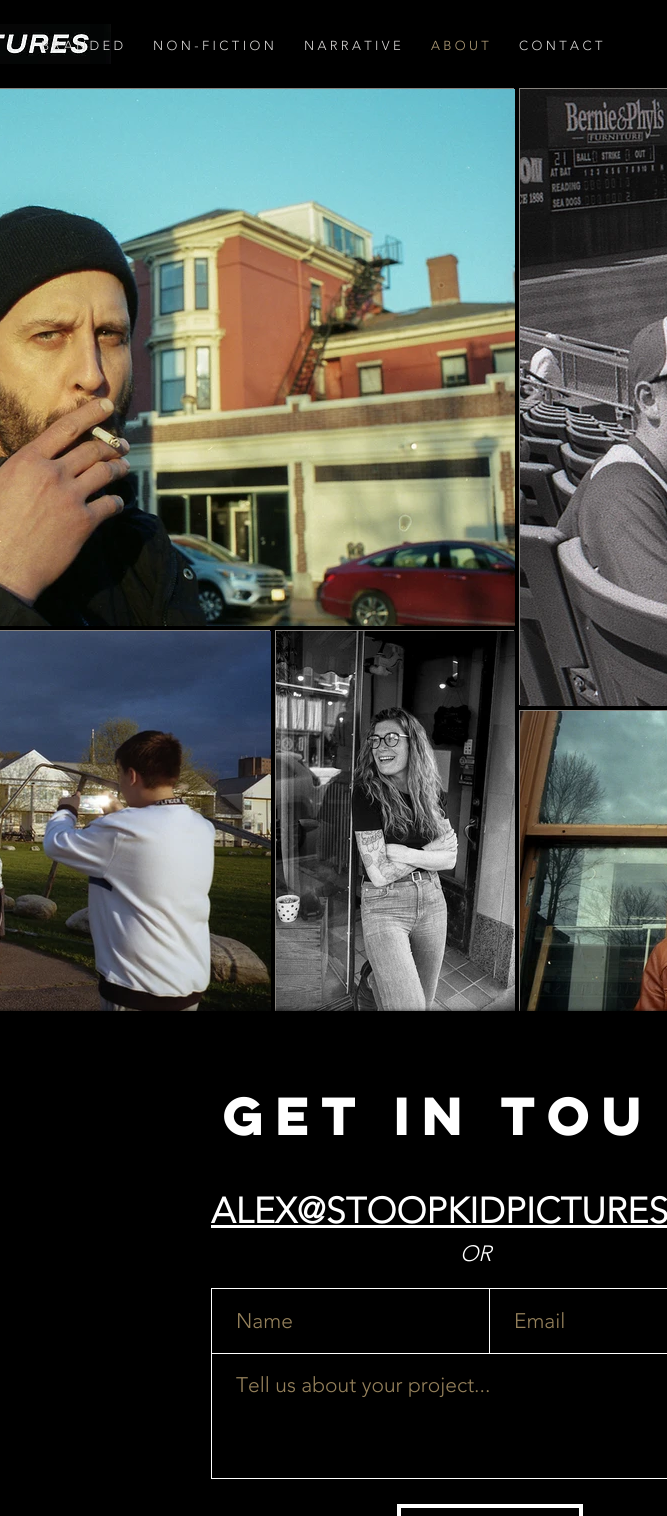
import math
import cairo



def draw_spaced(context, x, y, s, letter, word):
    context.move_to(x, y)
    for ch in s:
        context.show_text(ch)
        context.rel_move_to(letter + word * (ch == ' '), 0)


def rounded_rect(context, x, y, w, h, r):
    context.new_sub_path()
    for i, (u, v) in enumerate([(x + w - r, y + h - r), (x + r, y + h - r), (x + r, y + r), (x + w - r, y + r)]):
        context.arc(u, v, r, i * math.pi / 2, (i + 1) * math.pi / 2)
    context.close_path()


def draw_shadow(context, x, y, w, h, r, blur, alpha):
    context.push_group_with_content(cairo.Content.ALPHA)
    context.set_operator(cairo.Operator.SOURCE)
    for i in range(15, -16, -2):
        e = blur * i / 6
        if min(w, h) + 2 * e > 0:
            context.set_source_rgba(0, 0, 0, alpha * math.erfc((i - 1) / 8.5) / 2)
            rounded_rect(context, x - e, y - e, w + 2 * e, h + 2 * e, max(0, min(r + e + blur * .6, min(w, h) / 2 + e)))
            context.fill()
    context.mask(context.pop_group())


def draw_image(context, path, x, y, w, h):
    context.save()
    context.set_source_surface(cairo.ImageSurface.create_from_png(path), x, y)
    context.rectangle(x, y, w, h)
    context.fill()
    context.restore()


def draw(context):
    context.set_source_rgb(0, 0, 0)
    context.paint()
    draw_image(context, "images/1.png", 0, 24, 111, 40)
    context.set_source_rgb(135 / 255, 131 / 255, 126 / 255)
    context.rectangle(0, 88, 514, 1)
    context.fill()
    draw_image(context, "images/2.png", 0, 89, 515, 537)
    context.rectangle(0, 630, 270, 1)
    context.fill()
    draw_image(context, "images/3.png", 0, 631, 271, 380)
    context.rectangle(275, 630, 239, 381)
    context.fill()
    draw_image(context, "images/4.png", 276, 631, 239, 380)
    context.rectangle(519, 88, 148, 617)
    context.fill()
    draw_image(context, "images/5.png", 520, 89, 147, 617)
    context.rectangle(519, 710, 148, 301)
    context.fill()
    draw_image(context, "images/6.png", 520, 711, 147, 300)
    context.save()
    context.rectangle(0, 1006, 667, 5)
    context.clip()
    context.set_source_rgb(0, 0, 0)
    draw_shadow(context, 0, 1011, 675, 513, 0, 2.5, 0.7)
    context.restore()
    context.set_source_rgb(1, 1, 1)
    context.rectangle(211, 1225, 456, 3)
    context.fill()
    context.rectangle(211.5, 1288.5, 279, 65)
    context.set_line_width(1)
    context.stroke()
    context.set_source_rgb(0, 0, 0)
    context.rectangle(490, 1289, 1, 64)
    context.fill()
    context.rectangle(489.5, 1288.5, 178, 65)
    context.set_source_rgb(1, 1, 1)
    context.stroke()
    context.rectangle(211.5, 1353.5, 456, 125)
    context.stroke()
    context.rectangle(399, 1506, 182, 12)
    context.set_line_width(4)
    context.stroke()
    context.select_font_face("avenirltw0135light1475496 Light")
    context.set_font_size(13)
    context.set_source_rgb(219 / 255, 217 / 255, 215 / 255)
    context.move_to(41, 50)
    context.show_text("B R A N D E D")
    context.move_to(153, 50)
    context.show_text("N O N - F I C T I O N")
    context.move_to(304, 50)
    context.show_text("N A R R A T I V E")
    context.set_source_rgb(179 / 255, 159 / 255, 121 / 255)
    context.move_to(431, 50)
    context.show_text("A B O U T")
    context.set_source_rgb(219 / 255, 217 / 255, 215 / 255)
    context.move_to(519, 50)
    context.show_text("C O N T A C T")
    context.select_font_face("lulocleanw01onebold", cairo.FontSlant.NORMAL, cairo.FontWeight.BOLD)
    context.set_font_size(48)
    context.set_source_rgb(1, 1, 1)
    draw_spaced(context, 223, 1135, "GET IN TOU", 1.5, 0)
    context.select_font_face("avenirltw0135light1475496", cairo.FontSlant.NORMAL, cairo.FontWeight.BOLD)
    context.set_font_size(36)
    context.move_to(211, 1223)
    context.show_text("ALEX@STOOPKIDPICTURES")
    context.select_font_face("avenirltw0135light1475496 Light", cairo.FontSlant.ITALIC)
    context.set_font_size(22)
    context.move_to(460, 1261)
    context.show_text("OR")
    context.select_font_face("avenirltw0135light1475496 Light")
    context.set_font_size(21)
    context.set_source_rgb(149 / 255, 129 / 255, 91 / 255)
    context.move_to(236, 1328)
    context.show_text("Name")
    context.move_to(514, 1328)
    context.show_text("Email")
    context.move_to(236, 1392)
    context.show_text("Tell us about your project...")


surface = cairo.ImageSurface(cairo.Format.RGB24, 667, 1516)
context = cairo.Context(surface)
options = cairo.FontOptions()
options.set_hint_metrics(cairo.HintMetrics.OFF)
options.set_hint_style(cairo.HintStyle.NONE)
context.set_font_options(options)
context.set_miter_limit(4)
draw(context)
surface.write_to_png("out.png")
